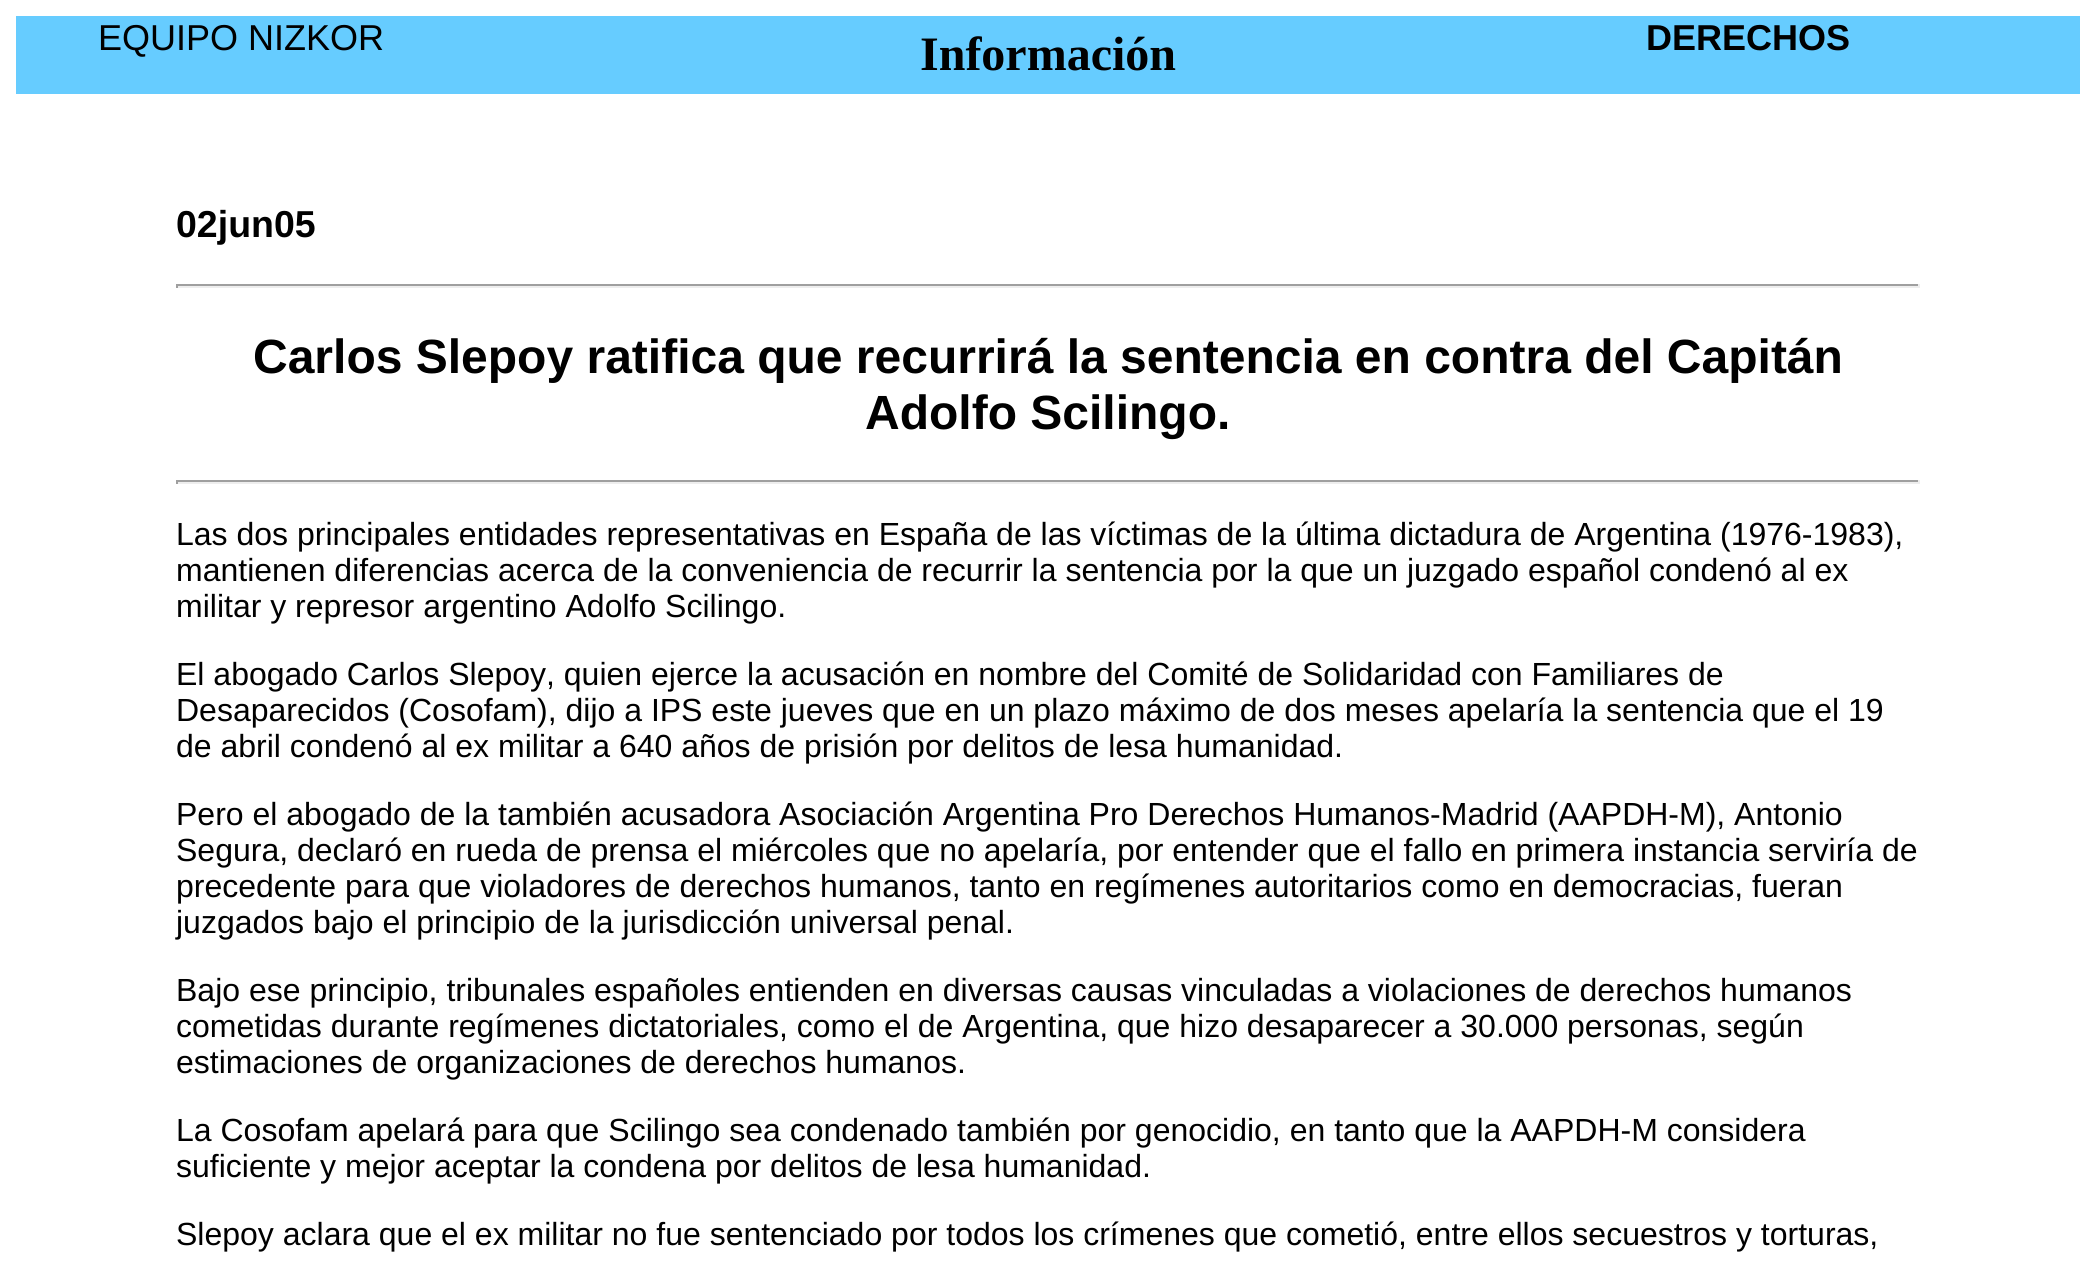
import math
import cairo



def draw(context):
    context.set_source_rgb(1, 1, 1)
    context.paint()
    context.set_source_rgb(102 / 255, 204 / 255, 1)
    context.rectangle(16, 16, 2064, 78)
    context.fill()
    context.set_source_rgb(159 / 255, 159 / 255, 159 / 255)
    context.rectangle(176, 284, 1744, 2)
    context.fill()
    context.set_source_rgb(238 / 255, 238 / 255, 238 / 255)
    context.rectangle(1918, 284, 2, 4)
    context.fill()
    context.rectangle(176, 286, 1744, 2)
    context.fill()
    context.set_source_rgb(159 / 255, 159 / 255, 159 / 255)
    context.rectangle(176, 284, 2, 4)
    context.fill()
    context.rectangle(176, 480, 1744, 2)
    context.fill()
    context.set_source_rgb(238 / 255, 238 / 255, 238 / 255)
    context.rectangle(1918, 480, 2, 4)
    context.fill()
    context.rectangle(176, 482, 1744, 2)
    context.fill()
    context.set_source_rgb(159 / 255, 159 / 255, 159 / 255)
    context.rectangle(176, 480, 2, 4)
    context.fill()
    context.select_font_face("Liberation Sans")
    context.set_font_size(36)
    context.set_source_rgb(0, 0, 0)
    context.move_to(98, 50)
    context.show_text("EQUIPO NIZKOR")
    context.select_font_face("Liberation Serif", cairo.FontSlant.NORMAL, cairo.FontWeight.BOLD)
    context.set_font_size(48)
    context.move_to(920, 70)
    context.show_text("Información")
    context.select_font_face("Liberation Sans", cairo.FontSlant.NORMAL, cairo.FontWeight.BOLD)
    context.set_font_size(36)
    context.move_to(1646, 50)
    context.show_text("DERECHOS")
    context.set_font_size(37.5)
    context.move_to(176, 237)
    context.show_text("02jun05")
    context.set_font_size(48)
    context.move_to(253, 373)
    context.show_text("Carlos Slepoy ratifica que recurrirá la sentencia en contra del Capitán")
    context.move_to(865, 429)
    context.show_text("Adolfo Scilingo.")
    context.select_font_face("Liberation Sans")
    context.set_font_size(32)
    context.move_to(176, 545)
    context.show_text("Las dos principales entidades representativas en España de las víctimas de la última dictadura de Argentina (1976-1983),")
    context.move_to(176, 581)
    context.show_text("mantienen diferencias acerca de la conveniencia de recurrir la sentencia por la que un juzgado español condenó al ex")
    context.move_to(176, 617)
    context.show_text("militar y represor argentino Adolfo Scilingo.")
    context.move_to(176, 685)
    context.show_text("El abogado Carlos Slepoy, quien ejerce la acusación en nombre del Comité de Solidaridad con Familiares de")
    context.move_to(176, 721)
    context.show_text("Desaparecidos (Cosofam), dijo a IPS este jueves que en un plazo máximo de dos meses apelaría la sentencia que el 19")
    context.move_to(176, 757)
    context.show_text("de abril condenó al ex militar a 640 años de prisión por delitos de lesa humanidad.")
    context.move_to(176, 825)
    context.show_text("Pero el abogado de la también acusadora Asociación Argentina Pro Derechos Humanos-Madrid (AAPDH-M), Antonio")
    context.move_to(176, 861)
    context.show_text("Segura, declaró en rueda de prensa el miércoles que no apelaría, por entender que el fallo en primera instancia serviría de")
    context.move_to(176, 897)
    context.show_text("precedente para que violadores de derechos humanos, tanto en regímenes autoritarios como en democracias, fueran")
    context.move_to(176, 933)
    context.show_text("juzgados bajo el principio de la jurisdicción universal penal.")
    context.move_to(176, 1001)
    context.show_text("Bajo ese principio, tribunales españoles entienden en diversas causas vinculadas a violaciones de derechos humanos")
    context.move_to(176, 1037)
    context.show_text("cometidas durante regímenes dictatoriales, como el de Argentina, que hizo desaparecer a 30.000 personas, según")
    context.move_to(176, 1073)
    context.show_text("estimaciones de organizaciones de derechos humanos.")
    context.move_to(176, 1141)
    context.show_text("La Cosofam apelará para que Scilingo sea condenado también por genocidio, en tanto que la AAPDH-M considera")
    context.move_to(176, 1177)
    context.show_text("suficiente y mejor aceptar la condena por delitos de lesa humanidad.")
    context.move_to(176, 1245)
    context.show_text("Slepoy aclara que el ex militar no fue sentenciado por todos los crímenes que cometió, entre ellos secuestros y torturas,")


surface = cairo.ImageSurface(cairo.Format.RGB24, 2095, 1280)
context = cairo.Context(surface)
options = cairo.FontOptions()
options.set_hint_metrics(cairo.HintMetrics.OFF)
options.set_hint_style(cairo.HintStyle.NONE)
context.set_font_options(options)
context.set_miter_limit(4)
draw(context)
surface.write_to_png("out.png")
